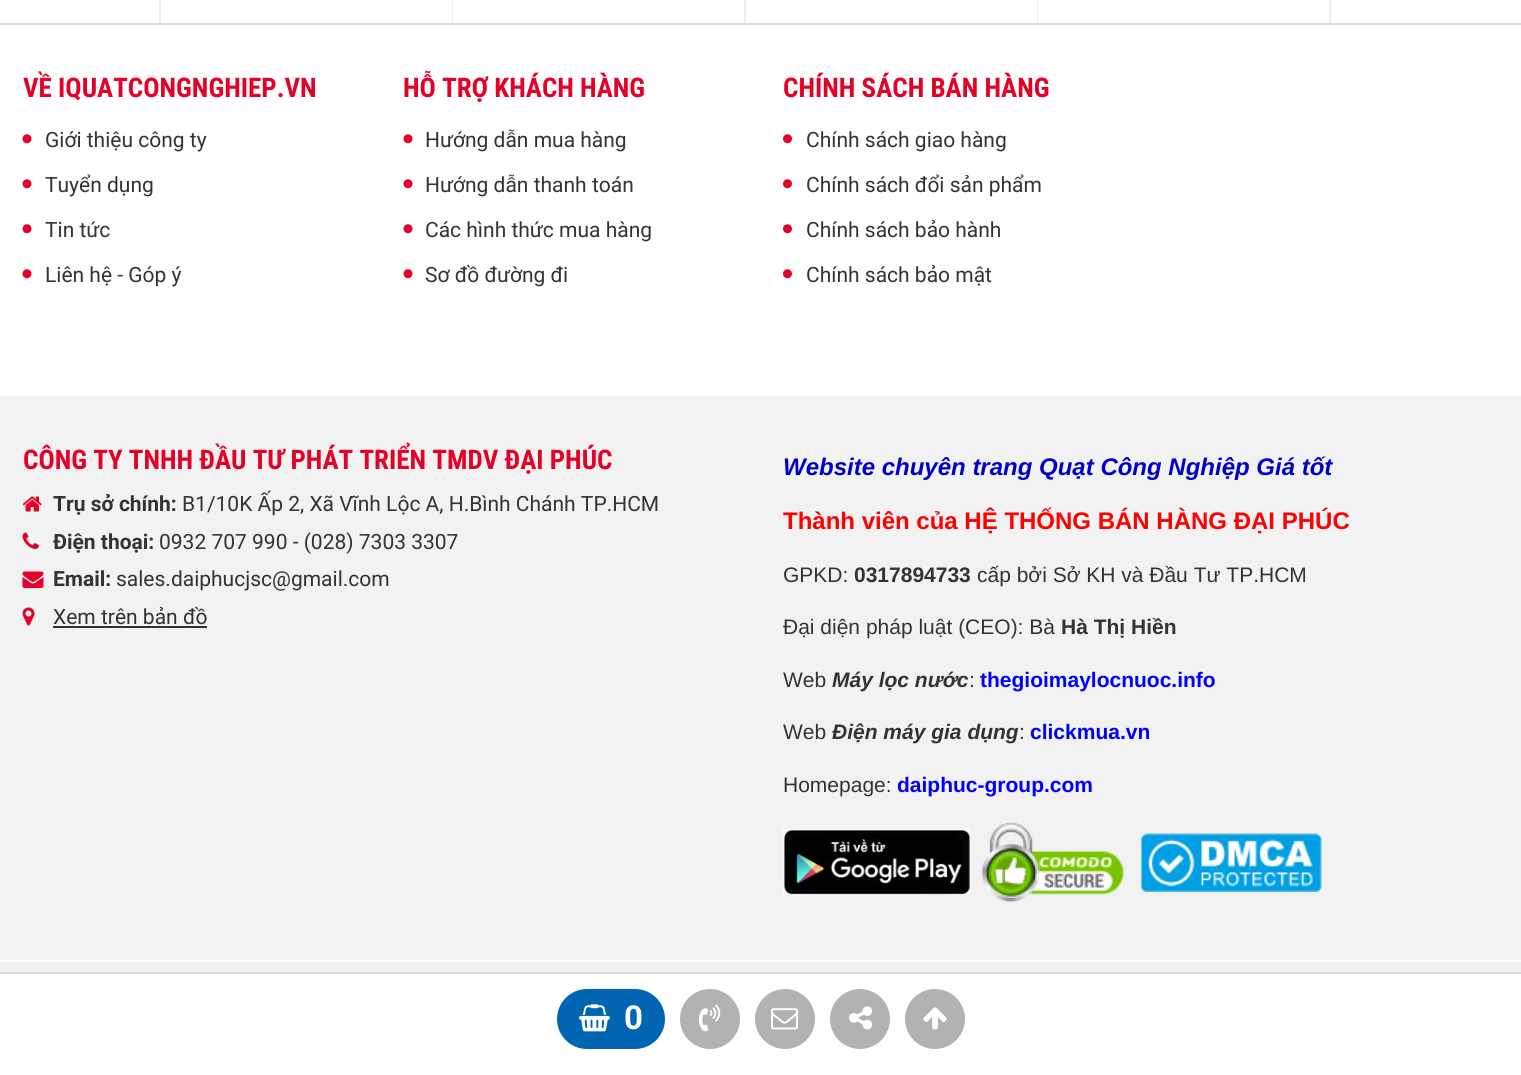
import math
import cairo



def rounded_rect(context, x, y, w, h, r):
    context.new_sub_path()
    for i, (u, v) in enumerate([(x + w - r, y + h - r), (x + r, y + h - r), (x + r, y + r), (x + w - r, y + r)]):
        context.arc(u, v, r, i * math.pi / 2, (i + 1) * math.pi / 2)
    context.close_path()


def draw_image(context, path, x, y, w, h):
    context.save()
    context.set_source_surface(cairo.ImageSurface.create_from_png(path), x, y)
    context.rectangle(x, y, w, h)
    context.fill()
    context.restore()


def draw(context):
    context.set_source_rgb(1, 1, 1)
    context.paint()
    context.set_source_rgb(219 / 255, 219 / 255, 219 / 255)
    context.rectangle(0, 23, 1521, 2)
    context.fill()
    context.set_source_rgb(237 / 255, 237 / 255, 237 / 255)
    context.rectangle(159, 0, 2, 23)
    context.fill()
    context.rectangle(452, 0, 1, 23)
    context.fill()
    context.rectangle(744, 0, 2, 23)
    context.fill()
    context.rectangle(1037, 0, 1, 23)
    context.fill()
    context.rectangle(1329, 0, 2, 23)
    context.fill()
    draw_image(context, "images/1.png", 22, 134, 10, 10)
    draw_image(context, "images/1.png", 22, 179, 10, 10)
    draw_image(context, "images/1.png", 22, 224, 10, 10)
    draw_image(context, "images/1.png", 22, 269, 10, 10)
    draw_image(context, "images/1.png", 403, 134, 10, 10)
    draw_image(context, "images/1.png", 403, 179, 10, 10)
    draw_image(context, "images/1.png", 403, 224, 10, 10)
    draw_image(context, "images/1.png", 403, 269, 10, 10)
    draw_image(context, "images/2.png", 783, 134, 9, 10)
    draw_image(context, "images/2.png", 783, 179, 9, 10)
    draw_image(context, "images/2.png", 783, 224, 9, 10)
    draw_image(context, "images/2.png", 783, 269, 9, 10)
    context.set_source_rgb(242 / 255, 242 / 255, 242 / 255)
    context.rectangle(0, 396, 1521, 576)
    context.fill()
    context.set_source_rgb(1, 1, 1)
    context.rectangle(0, 960, 1521, 2)
    context.fill()
    draw_image(context, "images/3.png", 22, 496, 20, 16)
    draw_image(context, "images/4.png", 22, 532, 17, 17)
    draw_image(context, "images/5.png", 22, 571, 22, 17)
    draw_image(context, "images/6.png", 22, 607, 13, 19)
    context.set_source_rgb(51 / 255, 51 / 255, 51 / 255)
    context.rectangle(53, 626, 154, 2)
    context.fill()
    draw_image(context, "images/7.png", 783, 829, 188, 66)
    draw_image(context, "images/8.png", 981, 822, 143, 81)
    draw_image(context, "images/9.png", 1140, 833, 182, 59)
    context.set_source_rgb(219 / 255, 219 / 255, 219 / 255)
    context.rectangle(0, 972, 1521, 2)
    context.fill()
    context.set_source_rgb(0, 102 / 255, 180 / 255)
    rounded_rect(context, 557, 989, 108, 60, 30)
    context.fill()
    draw_image(context, "images/10.png", 579, 1004, 31, 28)
    context.set_source_rgb(178 / 255, 178 / 255, 178 / 255)
    context.arc(710, 1019, 30, 0, 2 * math.pi)
    context.fill()
    draw_image(context, "images/11.png", 699, 1004, 22, 28)
    context.arc(785, 1019, 30, 0, 2 * math.pi)
    context.fill()
    draw_image(context, "images/12.png", 771, 1008, 27, 22)
    context.arc(860, 1019, 30, 0, 2 * math.pi)
    context.fill()
    draw_image(context, "images/13.png", 849, 1006, 24, 24)
    context.arc(935, 1019, 30, 0, 2 * math.pi)
    context.fill()
    draw_image(context, "images/14.png", 923, 1007, 24, 23)
    context.select_font_face("Roboto Condensed", cairo.FontSlant.NORMAL, cairo.FontWeight.BOLD)
    context.set_font_size(27)
    context.set_source_rgb(229 / 255, 0, 40 / 255)
    context.move_to(23, 97)
    context.show_text("VỀ IQUATCONGNGHIEP.VN")
    context.select_font_face("Roboto")
    context.set_font_size(21)
    context.set_source_rgb(51 / 255, 51 / 255, 51 / 255)
    context.move_to(45, 147)
    context.show_text("Giới thiệu công ty")
    context.move_to(45, 192)
    context.show_text("Tuyển dụng")
    context.move_to(45, 237)
    context.show_text("Tin tức")
    context.move_to(45, 282)
    context.show_text("Liên hệ - Góp ý")
    context.select_font_face("Roboto Condensed", cairo.FontSlant.NORMAL, cairo.FontWeight.BOLD)
    context.set_font_size(27)
    context.set_source_rgb(229 / 255, 0, 40 / 255)
    context.move_to(403, 97)
    context.show_text("HỖ TRỢ KHÁCH HÀNG")
    context.select_font_face("Roboto")
    context.set_font_size(21)
    context.set_source_rgb(51 / 255, 51 / 255, 51 / 255)
    context.move_to(425, 147)
    context.show_text("Hướng dẫn mua hàng")
    context.move_to(425, 192)
    context.show_text("Hướng dẫn thanh toán")
    context.move_to(425, 237)
    context.show_text("Các hình thức mua hàng")
    context.move_to(425, 282)
    context.show_text("Sơ đồ đường đi")
    context.select_font_face("Roboto Condensed", cairo.FontSlant.NORMAL, cairo.FontWeight.BOLD)
    context.set_font_size(27)
    context.set_source_rgb(229 / 255, 0, 40 / 255)
    context.move_to(783, 97)
    context.show_text("CHÍNH SÁCH BÁN HÀNG")
    context.select_font_face("Roboto")
    context.set_font_size(21)
    context.set_source_rgb(51 / 255, 51 / 255, 51 / 255)
    context.move_to(806, 147)
    context.show_text("Chính sách giao hàng")
    context.move_to(806, 192)
    context.show_text("Chính sách đổi sản phẩm")
    context.move_to(806, 237)
    context.show_text("Chính sách bảo hành")
    context.move_to(806, 282)
    context.show_text("Chính sách bảo mật")
    context.select_font_face("Roboto Condensed", cairo.FontSlant.NORMAL, cairo.FontWeight.BOLD)
    context.set_font_size(27)
    context.set_source_rgb(229 / 255, 0, 40 / 255)
    context.move_to(23, 469)
    context.show_text("CÔNG TY TNHH ĐẦU TƯ PHÁT TRIỂN TMDV ĐẠI PHÚC")
    context.select_font_face("Roboto", cairo.FontSlant.NORMAL, cairo.FontWeight.BOLD)
    context.set_font_size(21)
    context.set_source_rgb(51 / 255, 51 / 255, 51 / 255)
    context.move_to(53, 511)
    context.show_text("Trụ sở chính:")
    context.select_font_face("Roboto")
    context.move_to(182, 511)
    context.show_text("B1/10K Ấp 2, Xã Vĩnh Lộc A, H.Bình Chánh TP.HCM")
    context.select_font_face("Roboto", cairo.FontSlant.NORMAL, cairo.FontWeight.BOLD)
    context.move_to(53, 549)
    context.show_text("Điện thoại:")
    context.select_font_face("Roboto")
    context.move_to(159, 549)
    context.show_text("0932 707 990 - (028) 7303 3307")
    context.select_font_face("Roboto", cairo.FontSlant.NORMAL, cairo.FontWeight.BOLD)
    context.move_to(53, 586)
    context.show_text("Email:")
    context.select_font_face("Roboto")
    context.move_to(116, 586)
    context.show_text("sales.daiphucjsc@gmail.com")
    context.move_to(53, 624)
    context.show_text("Xem trên bản đồ")
    context.select_font_face("Liberation Sans", cairo.FontSlant.ITALIC, cairo.FontWeight.BOLD)
    context.set_font_size(24)
    context.set_source_rgb(0, 0, 205 / 255)
    context.move_to(783, 475)
    context.show_text("Website chuyên trang Quạt Công Nghiệp Giá tốt")
    context.select_font_face("Liberation Sans", cairo.FontSlant.NORMAL, cairo.FontWeight.BOLD)
    context.set_source_rgb(1, 0, 0)
    context.move_to(783, 529)
    context.show_text("Thành viên của HỆ THỐNG BÁN HÀNG ĐẠI PHÚC")
    context.select_font_face("Liberation Sans")
    context.set_font_size(21)
    context.set_source_rgb(51 / 255, 51 / 255, 51 / 255)
    context.move_to(783, 582)
    context.show_text("GPKD:")
    context.select_font_face("Liberation Sans", cairo.FontSlant.NORMAL, cairo.FontWeight.BOLD)
    context.move_to(854, 582)
    context.show_text("0317894733")
    context.select_font_face("Liberation Sans")
    context.move_to(977, 582)
    context.show_text("cấp bởi Sở KH và Đầu Tư TP.HCM")
    context.move_to(783, 634)
    context.show_text("Đại diện pháp luật (CEO): Bà")
    context.select_font_face("Liberation Sans", cairo.FontSlant.NORMAL, cairo.FontWeight.BOLD)
    context.move_to(1061, 634)
    context.show_text("Hà Thị Hiền")
    context.select_font_face("Liberation Sans")
    context.move_to(783, 687)
    context.show_text("Web")
    context.select_font_face("Liberation Sans", cairo.FontSlant.ITALIC, cairo.FontWeight.BOLD)
    context.move_to(832, 687)
    context.show_text("Máy lọc nước")
    context.select_font_face("Liberation Sans")
    context.move_to(969, 687)
    context.show_text(":")
    context.select_font_face("Liberation Sans", cairo.FontSlant.NORMAL, cairo.FontWeight.BOLD)
    context.set_source_rgb(0, 0, 1)
    context.move_to(980, 687)
    context.show_text("thegioimaylocnuoc.info")
    context.select_font_face("Liberation Sans")
    context.set_source_rgb(51 / 255, 51 / 255, 51 / 255)
    context.move_to(783, 739)
    context.show_text("Web")
    context.select_font_face("Liberation Sans", cairo.FontSlant.ITALIC, cairo.FontWeight.BOLD)
    context.move_to(832, 739)
    context.show_text("Điện máy gia dụng")
    context.select_font_face("Liberation Sans")
    context.move_to(1019, 739)
    context.show_text(":")
    context.select_font_face("Liberation Sans", cairo.FontSlant.NORMAL, cairo.FontWeight.BOLD)
    context.set_source_rgb(0, 0, 1)
    context.move_to(1030, 739)
    context.show_text("clickmua.vn")
    context.select_font_face("Liberation Sans")
    context.set_source_rgb(51 / 255, 51 / 255, 51 / 255)
    context.move_to(783, 792)
    context.show_text("Homepage:")
    context.select_font_face("Liberation Sans", cairo.FontSlant.NORMAL, cairo.FontWeight.BOLD)
    context.set_source_rgb(0, 0, 1)
    context.move_to(897, 792)
    context.show_text("daiphuc-group.com")
    context.select_font_face("Roboto", cairo.FontSlant.NORMAL, cairo.FontWeight.BOLD)
    context.set_font_size(33)
    context.set_source_rgb(1, 1, 1)
    context.move_to(624, 1029)
    context.show_text("0")


surface = cairo.ImageSurface(cairo.Format.RGB24, 1521, 1075)
context = cairo.Context(surface)
options = cairo.FontOptions()
options.set_hint_metrics(cairo.HintMetrics.OFF)
options.set_hint_style(cairo.HintStyle.NONE)
context.set_font_options(options)
context.set_miter_limit(4)
draw(context)
surface.write_to_png("out.png")
